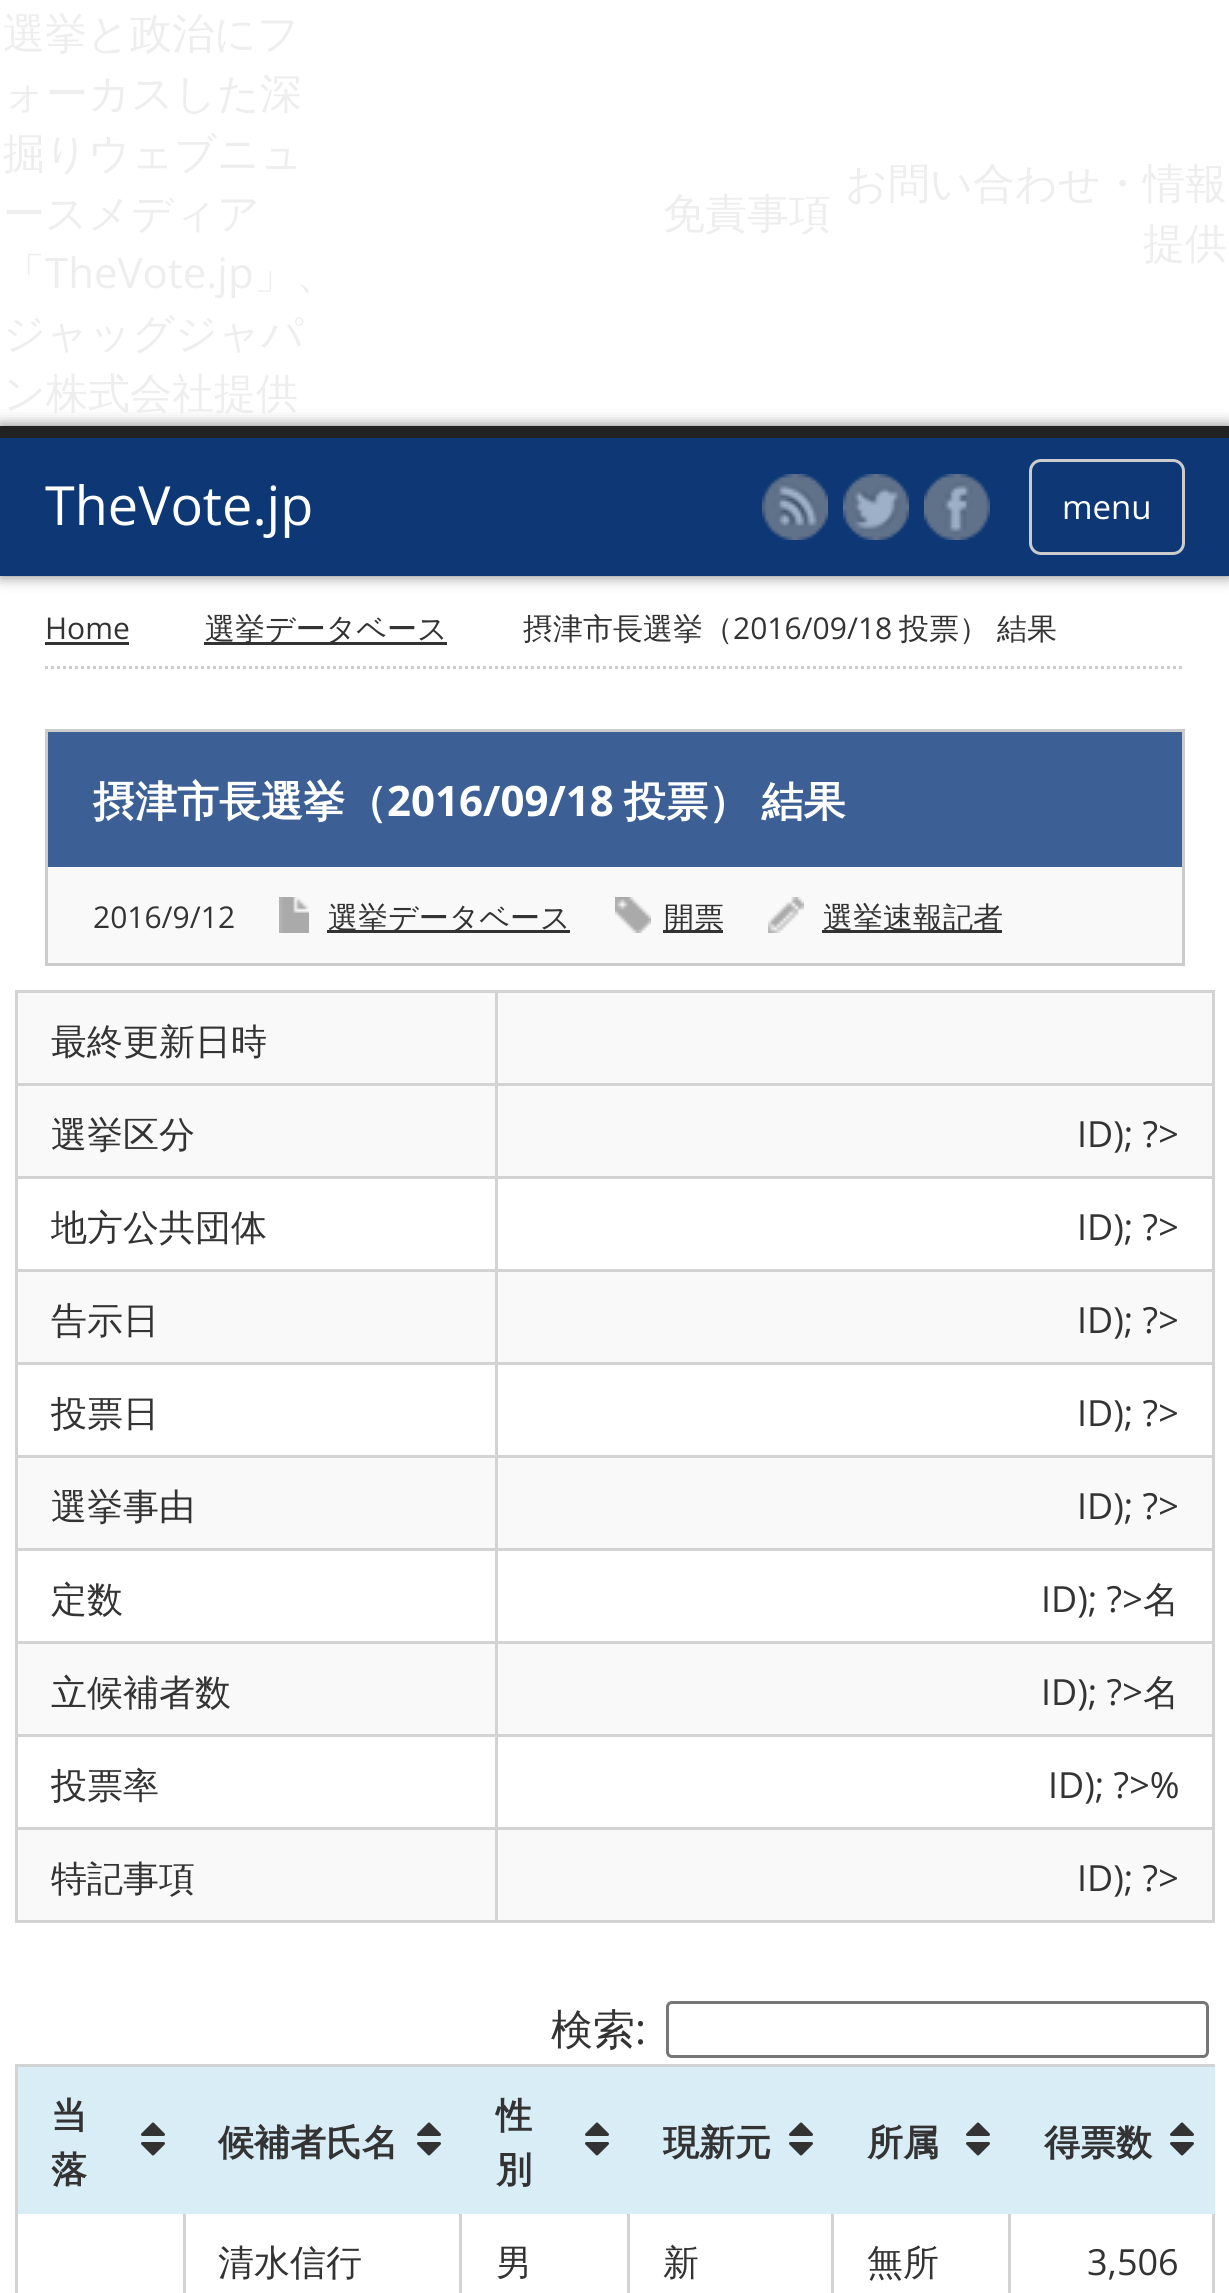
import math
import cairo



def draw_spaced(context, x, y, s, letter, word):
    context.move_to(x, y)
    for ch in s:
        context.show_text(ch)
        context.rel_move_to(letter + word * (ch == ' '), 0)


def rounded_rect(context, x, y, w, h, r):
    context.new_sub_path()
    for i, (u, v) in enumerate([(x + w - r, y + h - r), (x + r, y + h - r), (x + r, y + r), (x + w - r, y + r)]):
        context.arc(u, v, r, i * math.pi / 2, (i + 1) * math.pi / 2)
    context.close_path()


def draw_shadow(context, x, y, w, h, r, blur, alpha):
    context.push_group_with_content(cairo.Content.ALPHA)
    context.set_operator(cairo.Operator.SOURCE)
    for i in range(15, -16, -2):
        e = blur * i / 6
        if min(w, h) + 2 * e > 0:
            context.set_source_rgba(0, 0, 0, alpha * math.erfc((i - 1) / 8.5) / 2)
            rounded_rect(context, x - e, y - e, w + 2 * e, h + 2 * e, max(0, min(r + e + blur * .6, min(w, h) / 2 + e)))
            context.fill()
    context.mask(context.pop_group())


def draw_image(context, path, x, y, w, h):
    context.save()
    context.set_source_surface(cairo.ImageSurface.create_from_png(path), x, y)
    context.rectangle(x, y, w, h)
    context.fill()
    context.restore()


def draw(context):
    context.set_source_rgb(1, 1, 1)
    context.paint()
    context.set_source_rgb(0, 0, 0)
    draw_shadow(context, 0, 426, 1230, 150, 0, 7.5, 0.5)
    context.set_source_rgb(13 / 255, 55 / 255, 117 / 255)
    context.rectangle(0, 438, 1229, 138)
    context.fill()
    context.set_source_rgb(34 / 255, 34 / 255, 34 / 255)
    context.rectangle(0, 426, 1229, 12)
    context.fill()
    draw_image(context, "images/1.png", 762, 474, 66, 66)
    draw_image(context, "images/2.png", 843, 474, 66, 66)
    draw_image(context, "images/3.png", 924, 474, 66, 66)
    rounded_rect(context, 1030.5, 460.5, 153, 93, 10.5)
    context.set_source_rgb(204 / 255, 204 / 255, 204 / 255)
    context.set_line_width(3)
    context.stroke()
    context.new_path()
    context.move_to(45, 667.5)
    context.line_to(1185, 667.5)
    context.set_dash([3, 3])
    context.stroke()
    context.set_source_rgb(51 / 255, 51 / 255, 51 / 255)
    context.rectangle(45, 642, 84, 3)
    context.fill()
    context.rectangle(204, 642, 243, 3)
    context.fill()
    context.rectangle(46.5, 730.5, 1137, 234)
    context.set_source_rgb(204 / 255, 204 / 255, 204 / 255)
    context.set_dash([])
    context.stroke()
    context.set_source_rgb(60 / 255, 96 / 255, 149 / 255)
    context.rectangle(48, 732, 1134, 135)
    context.fill()
    context.set_source_rgb(249 / 255, 249 / 255, 249 / 255)
    context.rectangle(48, 867, 1134, 96)
    context.fill()
    draw_image(context, "images/4.png", 279, 897, 30, 36)
    context.set_source_rgb(51 / 255, 51 / 255, 51 / 255)
    context.rectangle(327, 930, 243, 3)
    context.fill()
    draw_image(context, "images/5.png", 615, 897, 36, 36)
    context.rectangle(663, 930, 60, 3)
    context.fill()
    draw_image(context, "images/6.png", 768, 897, 36, 36)
    context.rectangle(822, 930, 180, 3)
    context.fill()
    context.set_source_rgb(249 / 255, 249 / 255, 249 / 255)
    context.rectangle(18, 993, 477, 90)
    context.fill()
    context.set_source_rgb(211 / 255, 211 / 255, 211 / 255)
    context.rectangle(495, 990, 720, 3)
    context.fill()
    context.rectangle(495, 1083, 720, 3)
    context.fill()
    context.rectangle(495, 1176, 720, 3)
    context.fill()
    context.rectangle(495, 1269, 720, 3)
    context.fill()
    context.rectangle(495, 1362, 720, 3)
    context.fill()
    context.rectangle(495, 1455, 720, 3)
    context.fill()
    context.rectangle(495, 1548, 720, 3)
    context.fill()
    context.rectangle(495, 1641, 720, 3)
    context.fill()
    context.rectangle(495, 1734, 720, 3)
    context.fill()
    context.rectangle(495, 1827, 720, 3)
    context.fill()
    context.rectangle(1212, 1827, 3, 96)
    context.fill()
    context.rectangle(495, 1920, 720, 3)
    context.fill()
    context.rectangle(495, 1827, 3, 96)
    context.fill()
    context.rectangle(15, 1827, 483, 3)
    context.fill()
    context.rectangle(495, 1734, 3, 96)
    context.fill()
    context.rectangle(15, 1734, 483, 3)
    context.fill()
    context.rectangle(495, 1641, 3, 96)
    context.fill()
    context.rectangle(15, 1641, 483, 3)
    context.fill()
    context.rectangle(495, 1548, 3, 96)
    context.fill()
    context.rectangle(15, 1548, 483, 3)
    context.fill()
    context.rectangle(495, 1455, 3, 96)
    context.fill()
    context.rectangle(15, 1455, 483, 3)
    context.fill()
    context.rectangle(495, 1362, 3, 96)
    context.fill()
    context.rectangle(15, 1362, 483, 3)
    context.fill()
    context.rectangle(495, 1269, 3, 96)
    context.fill()
    context.rectangle(15, 1269, 483, 3)
    context.fill()
    context.rectangle(495, 1176, 3, 96)
    context.fill()
    context.rectangle(15, 1176, 483, 3)
    context.fill()
    context.rectangle(495, 1083, 3, 96)
    context.fill()
    context.rectangle(15, 1083, 483, 3)
    context.fill()
    context.rectangle(495, 990, 3, 96)
    context.fill()
    context.rectangle(15, 990, 483, 3)
    context.fill()
    context.rectangle(15, 1920, 483, 3)
    context.fill()
    context.rectangle(15, 1827, 3, 96)
    context.fill()
    context.rectangle(15, 1734, 3, 96)
    context.fill()
    context.rectangle(15, 1641, 3, 96)
    context.fill()
    context.rectangle(15, 1548, 3, 96)
    context.fill()
    context.rectangle(15, 1455, 3, 96)
    context.fill()
    context.rectangle(15, 1362, 3, 96)
    context.fill()
    context.rectangle(15, 1269, 3, 96)
    context.fill()
    context.rectangle(15, 1176, 3, 96)
    context.fill()
    context.rectangle(15, 1083, 3, 96)
    context.fill()
    context.rectangle(15, 990, 3, 96)
    context.fill()
    context.set_source_rgb(249 / 255, 249 / 255, 249 / 255)
    context.rectangle(498, 993, 714, 90)
    context.fill()
    context.set_source_rgb(211 / 255, 211 / 255, 211 / 255)
    context.rectangle(1212, 1734, 3, 96)
    context.fill()
    context.rectangle(1212, 1641, 3, 96)
    context.fill()
    context.rectangle(1212, 1548, 3, 96)
    context.fill()
    context.rectangle(1212, 1455, 3, 96)
    context.fill()
    context.rectangle(1212, 1362, 3, 96)
    context.fill()
    context.rectangle(1212, 1269, 3, 96)
    context.fill()
    context.rectangle(1212, 1176, 3, 96)
    context.fill()
    context.rectangle(1212, 1083, 3, 96)
    context.fill()
    context.rectangle(1212, 990, 3, 96)
    context.fill()
    context.set_source_rgb(249 / 255, 249 / 255, 249 / 255)
    context.rectangle(18, 1086, 477, 90)
    context.fill()
    context.rectangle(498, 1086, 714, 90)
    context.fill()
    context.rectangle(18, 1272, 477, 90)
    context.fill()
    context.rectangle(498, 1272, 714, 90)
    context.fill()
    context.rectangle(18, 1458, 477, 90)
    context.fill()
    context.rectangle(498, 1458, 714, 90)
    context.fill()
    context.rectangle(18, 1644, 477, 90)
    context.fill()
    context.rectangle(498, 1644, 714, 90)
    context.fill()
    context.rectangle(18, 1830, 477, 90)
    context.fill()
    context.rectangle(498, 1830, 714, 90)
    context.fill()
    rounded_rect(context, 667.5, 2002.5, 540, 54, 4.5)
    context.set_source_rgb(118 / 255, 118 / 255, 118 / 255)
    context.stroke()
    context.set_source_rgb(211 / 255, 211 / 255, 211 / 255)
    context.rectangle(15, 2064, 1200, 3)
    context.fill()
    context.rectangle(15, 2211, 3, 82)
    context.fill()
    context.rectangle(15, 2064, 3, 150)
    context.fill()
    context.rectangle(183, 2211, 3, 82)
    context.fill()
    context.rectangle(459, 2211, 3, 82)
    context.fill()
    context.rectangle(627, 2211, 3, 82)
    context.fill()
    context.rectangle(831, 2211, 3, 82)
    context.fill()
    context.rectangle(1212, 2211, 3, 82)
    context.fill()
    context.rectangle(1008, 2211, 3, 82)
    context.fill()
    context.set_source_rgb(217 / 255, 237 / 255, 247 / 255)
    context.rectangle(18, 2067, 1197, 147)
    context.fill()
    draw_image(context, "images/7.png", 141, 2122, 24, 34)
    draw_image(context, "images/7.png", 417, 2122, 24, 34)
    draw_image(context, "images/7.png", 585, 2122, 24, 34)
    draw_image(context, "images/7.png", 789, 2122, 24, 34)
    draw_image(context, "images/7.png", 966, 2122, 24, 34)
    draw_image(context, "images/7.png", 1170, 2122, 24, 34)
    context.select_font_face("WenQuanYi Zen Hei Medium")
    context.set_font_size(42)
    context.set_source_rgb(238 / 255, 238 / 255, 238 / 255)
    context.move_to(3, 48)
    context.show_text("選挙と政治にフ")
    context.move_to(3, 108)
    context.show_text("ォーカスした深")
    context.move_to(3, 168)
    context.show_text("掘りウェブニュ")
    context.move_to(3, 228)
    context.show_text("ースメディア")
    context.move_to(3, 288)
    context.show_text("「")
    context.select_font_face("Open Sans")
    context.move_to(45, 288)
    context.show_text("TheVote.jp")
    context.select_font_face("WenQuanYi Zen Hei Medium")
    context.move_to(254, 288)
    context.show_text("」、")
    context.move_to(3, 348)
    context.show_text("ジャッグジャパ")
    context.move_to(3, 408)
    context.show_text("ン株式会社提供")
    context.move_to(663, 228)
    context.show_text("免責事項")
    context.move_to(845, 198)
    context.show_text("お問い合わせ・情報")
    context.move_to(1143, 258)
    context.show_text("提供")
    context.select_font_face("Open Sans")
    context.set_font_size(54)
    context.set_source_rgb(1, 1, 1)
    context.move_to(45, 525)
    context.show_text("TheVote.jp")
    context.set_font_size(33)
    context.move_to(1062, 519)
    context.show_text("menu")
    context.set_font_size(30)
    context.set_source_rgb(51 / 255, 51 / 255, 51 / 255)
    context.move_to(45, 639)
    context.show_text("Home")
    context.select_font_face("WenQuanYi Zen Hei Medium")
    context.move_to(205, 639)
    context.show_text("選挙データベース")
    context.move_to(523, 639)
    context.show_text("摂津市長選挙（")
    context.select_font_face("Open Sans")
    context.move_to(733, 639)
    context.show_text("2016/09/18")
    context.select_font_face("WenQuanYi Zen Hei Medium")
    draw_spaced(context, 899, 639, "投票） 結果", 0, -1)
    context.select_font_face("WenQuanYi Zen Hei", cairo.FontSlant.NORMAL, cairo.FontWeight.BOLD)
    context.set_font_size(42)
    context.set_source_rgb(1, 1, 1)
    context.move_to(93, 816)
    context.show_text("摂津市長選挙（")
    context.select_font_face("Open Sans", cairo.FontSlant.NORMAL, cairo.FontWeight.BOLD)
    context.move_to(387, 816)
    context.show_text("2016/09/18")
    context.select_font_face("WenQuanYi Zen Hei", cairo.FontSlant.NORMAL, cairo.FontWeight.BOLD)
    draw_spaced(context, 624, 816, "投票） 結果", 0, -1)
    context.select_font_face("Open Sans")
    context.set_font_size(30)
    context.set_source_rgb(51 / 255, 51 / 255, 51 / 255)
    context.move_to(93, 928)
    context.show_text("2016/9/12")
    context.select_font_face("WenQuanYi Zen Hei Medium")
    context.move_to(328, 928)
    context.show_text("選挙データベース")
    context.move_to(664, 928)
    context.show_text("開票")
    context.move_to(823, 928)
    context.show_text("選挙速報記者")
    context.set_font_size(36)
    context.move_to(51, 1054)
    context.show_text("最終更新日時")
    context.move_to(51, 1147)
    context.show_text("選挙区分")
    context.select_font_face("Open Sans")
    context.move_to(1077, 1147)
    context.show_text("ID); ?>")
    context.select_font_face("WenQuanYi Zen Hei Medium")
    context.move_to(51, 1240)
    context.show_text("地方公共団体")
    context.select_font_face("Open Sans")
    context.move_to(1077, 1240)
    context.show_text("ID); ?>")
    context.select_font_face("WenQuanYi Zen Hei Medium")
    context.move_to(51, 1333)
    context.show_text("告示日")
    context.select_font_face("Open Sans")
    context.move_to(1077, 1333)
    context.show_text("ID); ?>")
    context.select_font_face("WenQuanYi Zen Hei Medium")
    context.move_to(51, 1426)
    context.show_text("投票日")
    context.select_font_face("Open Sans")
    context.move_to(1077, 1426)
    context.show_text("ID); ?>")
    context.select_font_face("WenQuanYi Zen Hei Medium")
    context.move_to(51, 1519)
    context.show_text("選挙事由")
    context.select_font_face("Open Sans")
    context.move_to(1077, 1519)
    context.show_text("ID); ?>")
    context.select_font_face("WenQuanYi Zen Hei Medium")
    context.move_to(51, 1612)
    context.show_text("定数")
    context.select_font_face("Open Sans")
    context.move_to(1041, 1612)
    context.show_text("ID); ?>")
    context.select_font_face("WenQuanYi Zen Hei Medium")
    context.move_to(1143, 1612)
    context.show_text("名")
    context.move_to(51, 1705)
    context.show_text("立候補者数")
    context.select_font_face("Open Sans")
    context.move_to(1041, 1705)
    context.show_text("ID); ?>")
    context.select_font_face("WenQuanYi Zen Hei Medium")
    context.move_to(1143, 1705)
    context.show_text("名")
    context.move_to(51, 1798)
    context.show_text("投票率")
    context.select_font_face("Open Sans")
    context.move_to(1048, 1798)
    context.show_text("ID); ?>%")
    context.select_font_face("WenQuanYi Zen Hei Medium")
    context.move_to(51, 1891)
    context.show_text("特記事項")
    context.select_font_face("Open Sans")
    context.move_to(1077, 1891)
    context.show_text("ID); ?>")
    context.select_font_face("WenQuanYi Zen Hei Medium")
    context.set_font_size(42)
    context.move_to(551, 2044)
    context.show_text("検索")
    context.select_font_face("Open Sans")
    context.move_to(635, 2044)
    context.show_text(":")
    context.select_font_face("WenQuanYi Zen Hei", cairo.FontSlant.NORMAL, cairo.FontWeight.BOLD)
    context.set_font_size(36)
    context.move_to(51, 2128)
    context.show_text("当")
    context.move_to(51, 2182)
    context.show_text("落")
    context.move_to(218, 2155)
    context.show_text("候補者氏名")
    context.move_to(496, 2128)
    context.show_text("性")
    context.move_to(496, 2182)
    context.show_text("別")
    context.move_to(663, 2155)
    context.show_text("現新元")
    context.move_to(867, 2155)
    context.show_text("所属")
    context.move_to(1044, 2155)
    context.show_text("得票数")
    context.select_font_face("WenQuanYi Zen Hei Medium")
    context.move_to(218, 2275)
    context.show_text("清水信行")
    context.move_to(496, 2275)
    context.show_text("男")
    context.move_to(663, 2275)
    context.show_text("新")
    context.move_to(867, 2275)
    context.show_text("無所")
    context.select_font_face("Open Sans")
    context.move_to(1087, 2275)
    context.show_text("3,506")


surface = cairo.ImageSurface(cairo.Format.RGB24, 1229, 2293)
context = cairo.Context(surface)
options = cairo.FontOptions()
options.set_hint_metrics(cairo.HintMetrics.OFF)
options.set_hint_style(cairo.HintStyle.NONE)
context.set_font_options(options)
context.set_miter_limit(4)
draw(context)
surface.write_to_png("out.png")
